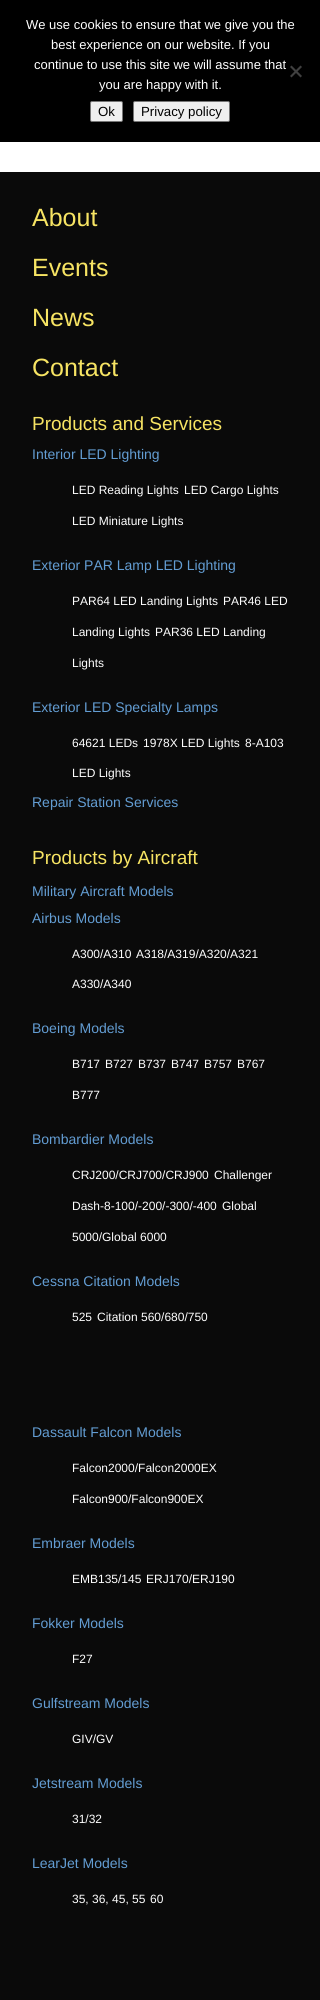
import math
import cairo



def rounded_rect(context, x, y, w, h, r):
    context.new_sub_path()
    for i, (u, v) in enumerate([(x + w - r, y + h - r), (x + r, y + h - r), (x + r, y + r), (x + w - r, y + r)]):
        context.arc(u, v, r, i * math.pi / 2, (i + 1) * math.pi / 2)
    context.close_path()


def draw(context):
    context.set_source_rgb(1, 1, 1)
    context.paint()
    context.set_source_rgb(0, 0, 0)
    context.rectangle(0, 0, 320, 142)
    context.fill()
    context.set_source_rgb(64 / 255, 64 / 255, 64 / 255)
    context.new_path()
    context.move_to(300.5, 65.5)
    context.line_to(302, 67)
    context.line_to(291.5, 77.5)
    context.line_to(290, 76)
    context.close_path()
    context.fill()
    context.new_path()
    context.move_to(290, 67)
    context.line_to(291.5, 65.5)
    context.line_to(302, 76)
    context.line_to(300.5, 77.5)
    context.close_path()
    context.fill()
    context.set_source_rgb(239 / 255, 239 / 255, 239 / 255)
    rounded_rect(context, 90.5, 101.5, 32, 20, 1.5)
    context.fill_preserve()
    context.set_source_rgb(118 / 255, 118 / 255, 118 / 255)
    context.set_line_width(1)
    context.stroke()
    context.set_source_rgb(239 / 255, 239 / 255, 239 / 255)
    rounded_rect(context, 133.5, 101.5, 96, 20, 1.5)
    context.fill_preserve()
    context.set_source_rgb(118 / 255, 118 / 255, 118 / 255)
    context.stroke()
    context.set_source_rgb(10 / 255, 10 / 255, 10 / 255)
    context.rectangle(0, 172, 320, 1828)
    context.fill()
    context.select_font_face("Liberation Sans")
    context.set_font_size(13)
    context.set_source_rgb(1, 1, 1)
    context.move_to(26, 29)
    context.show_text("We use cookies to ensure that we give you the")
    context.move_to(51, 49)
    context.show_text("best experience on our website. If you")
    context.move_to(34, 69)
    context.show_text("continue to use this site we will assume that")
    context.move_to(99, 89)
    context.show_text("you are happy with it.")
    context.set_font_size(13.25)
    context.set_source_rgb(0, 0, 0)
    context.move_to(98, 116)
    context.show_text("Ok")
    context.move_to(141, 116)
    context.show_text("Privacy policy")
    context.set_font_size(25)
    context.set_source_rgb(247 / 255, 228 / 255, 99 / 255)
    context.move_to(32, 226)
    context.show_text("About")
    context.move_to(32, 276)
    context.show_text("Events")
    context.move_to(32, 326)
    context.show_text("News")
    context.move_to(32, 376)
    context.show_text("Contact")
    context.set_font_size(19)
    context.move_to(32, 430)
    context.show_text("Products and Services")
    context.set_font_size(14)
    context.set_source_rgb(99 / 255, 157 / 255, 211 / 255)
    context.move_to(32, 459)
    context.show_text("Interior LED Lighting")
    context.set_font_size(12)
    context.set_source_rgb(1, 1, 1)
    context.move_to(72, 494)
    context.show_text("LED Reading Lights")
    context.move_to(184, 494)
    context.show_text("LED Cargo Lights")
    context.move_to(72, 525)
    context.show_text("LED Miniature Lights")
    context.set_font_size(14)
    context.set_source_rgb(99 / 255, 157 / 255, 211 / 255)
    context.move_to(32, 570)
    context.show_text("Exterior PAR Lamp LED Lighting")
    context.set_font_size(12)
    context.set_source_rgb(1, 1, 1)
    context.move_to(72, 605)
    context.show_text("PAR64 LED Landing Lights")
    context.move_to(223, 605)
    context.show_text("PAR46 LED")
    context.move_to(72, 636)
    context.show_text("Landing Lights")
    context.move_to(155, 636)
    context.show_text("PAR36 LED Landing")
    context.move_to(72, 667)
    context.show_text("Lights")
    context.set_font_size(14)
    context.set_source_rgb(99 / 255, 157 / 255, 211 / 255)
    context.move_to(32, 712)
    context.show_text("Exterior LED Specialty Lamps")
    context.set_font_size(12)
    context.set_source_rgb(1, 1, 1)
    context.move_to(72, 747)
    context.show_text("64621 LEDs")
    context.move_to(143, 747)
    context.show_text("1978X LED Lights")
    context.move_to(245, 747)
    context.show_text("8-A103")
    context.move_to(72, 777)
    context.show_text("LED Lights")
    context.set_font_size(14)
    context.set_source_rgb(99 / 255, 157 / 255, 211 / 255)
    context.move_to(32, 807)
    context.show_text("Repair Station Services")
    context.set_font_size(19)
    context.set_source_rgb(247 / 255, 228 / 255, 99 / 255)
    context.move_to(32, 864)
    context.show_text("Products by Aircraft")
    context.set_font_size(14)
    context.set_source_rgb(99 / 255, 157 / 255, 211 / 255)
    context.move_to(32, 896)
    context.show_text("Military Aircraft Models")
    context.move_to(32, 923)
    context.show_text("Airbus Models")
    context.set_font_size(12)
    context.set_source_rgb(1, 1, 1)
    context.move_to(72, 958)
    context.show_text("A300/A310")
    context.move_to(136, 958)
    context.show_text("A318/A319/A320/A321")
    context.move_to(72, 988)
    context.show_text("A330/A340")
    context.set_font_size(14)
    context.set_source_rgb(99 / 255, 157 / 255, 211 / 255)
    context.move_to(32, 1033)
    context.show_text("Boeing Models")
    context.set_font_size(12)
    context.set_source_rgb(1, 1, 1)
    context.move_to(72, 1068)
    context.show_text("B717")
    context.move_to(105, 1068)
    context.show_text("B727")
    context.move_to(138, 1068)
    context.show_text("B737")
    context.move_to(171, 1068)
    context.show_text("B747")
    context.move_to(204, 1068)
    context.show_text("B757")
    context.move_to(237, 1068)
    context.show_text("B767")
    context.move_to(72, 1099)
    context.show_text("B777")
    context.set_font_size(14)
    context.set_source_rgb(99 / 255, 157 / 255, 211 / 255)
    context.move_to(32, 1144)
    context.show_text("Bombardier Models")
    context.set_font_size(12)
    context.set_source_rgb(1, 1, 1)
    context.move_to(72, 1179)
    context.show_text("CRJ200/CRJ700/CRJ900")
    context.move_to(214, 1179)
    context.show_text("Challenger")
    context.move_to(72, 1210)
    context.show_text("Dash-8-100/-200/-300/-400")
    context.move_to(222, 1210)
    context.show_text("Global")
    context.move_to(72, 1241)
    context.show_text("5000/Global 6000")
    context.set_font_size(14)
    context.set_source_rgb(99 / 255, 157 / 255, 211 / 255)
    context.move_to(32, 1286)
    context.show_text("Cessna Citation Models")
    context.set_font_size(12)
    context.set_source_rgb(1, 1, 1)
    context.move_to(72, 1321)
    context.show_text("525")
    context.move_to(97, 1321)
    context.show_text("Citation 560/680/750")
    context.set_font_size(14)
    context.set_source_rgb(99 / 255, 157 / 255, 211 / 255)
    context.move_to(32, 1437)
    context.show_text("Dassault Falcon Models")
    context.set_font_size(12)
    context.set_source_rgb(1, 1, 1)
    context.move_to(72, 1472)
    context.show_text("Falcon2000/Falcon2000EX")
    context.move_to(72, 1503)
    context.show_text("Falcon900/Falcon900EX")
    context.set_font_size(14)
    context.set_source_rgb(99 / 255, 157 / 255, 211 / 255)
    context.move_to(32, 1548)
    context.show_text("Embraer Models")
    context.set_font_size(12)
    context.set_source_rgb(1, 1, 1)
    context.move_to(72, 1583)
    context.show_text("EMB135/145")
    context.move_to(146, 1583)
    context.show_text("ERJ170/ERJ190")
    context.set_font_size(14)
    context.set_source_rgb(99 / 255, 157 / 255, 211 / 255)
    context.move_to(32, 1628)
    context.show_text("Fokker Models")
    context.set_font_size(12)
    context.set_source_rgb(1, 1, 1)
    context.move_to(72, 1663)
    context.show_text("F27")
    context.set_font_size(14)
    context.set_source_rgb(99 / 255, 157 / 255, 211 / 255)
    context.move_to(32, 1708)
    context.show_text("Gulfstream Models")
    context.set_font_size(12)
    context.set_source_rgb(1, 1, 1)
    context.move_to(72, 1743)
    context.show_text("GIV/GV")
    context.set_font_size(14)
    context.set_source_rgb(99 / 255, 157 / 255, 211 / 255)
    context.move_to(32, 1788)
    context.show_text("Jetstream Models")
    context.set_font_size(12)
    context.set_source_rgb(1, 1, 1)
    context.move_to(72, 1823)
    context.show_text("31/32")
    context.set_font_size(14)
    context.set_source_rgb(99 / 255, 157 / 255, 211 / 255)
    context.move_to(32, 1868)
    context.show_text("LearJet Models")
    context.set_font_size(12)
    context.set_source_rgb(1, 1, 1)
    context.move_to(72, 1903)
    context.show_text("35, 36, 45, 55")
    context.move_to(150, 1903)
    context.show_text("60")


surface = cairo.ImageSurface(cairo.Format.RGB24, 320, 2000)
context = cairo.Context(surface)
options = cairo.FontOptions()
options.set_hint_metrics(cairo.HintMetrics.OFF)
options.set_hint_style(cairo.HintStyle.NONE)
context.set_font_options(options)
context.set_miter_limit(4)
draw(context)
surface.write_to_png("out.png")
